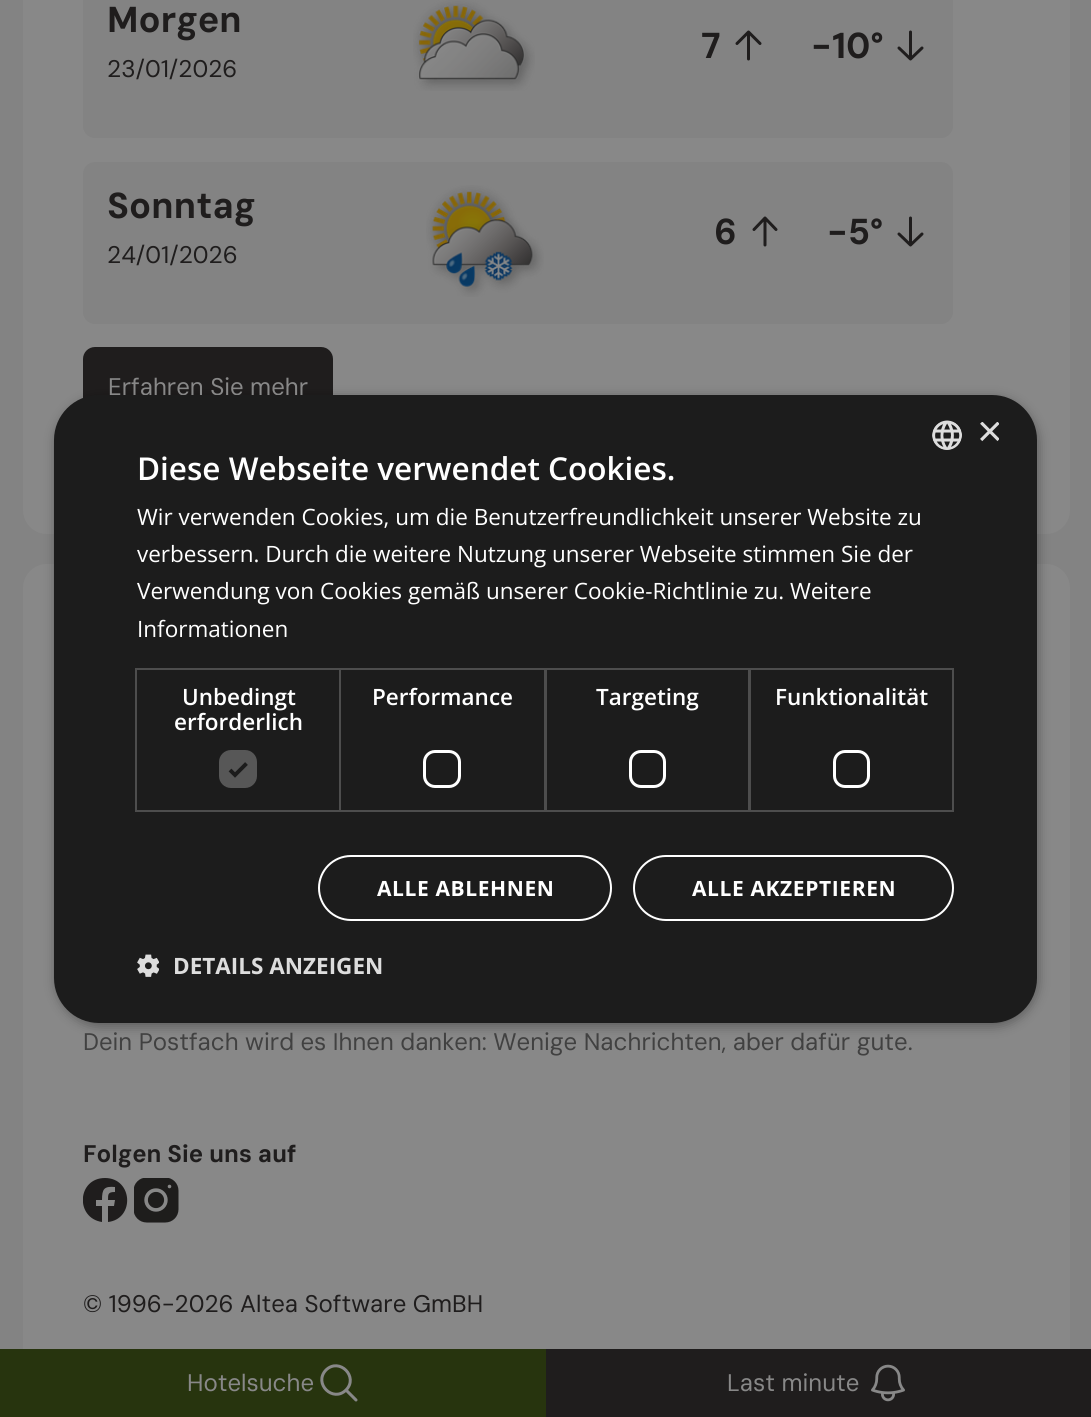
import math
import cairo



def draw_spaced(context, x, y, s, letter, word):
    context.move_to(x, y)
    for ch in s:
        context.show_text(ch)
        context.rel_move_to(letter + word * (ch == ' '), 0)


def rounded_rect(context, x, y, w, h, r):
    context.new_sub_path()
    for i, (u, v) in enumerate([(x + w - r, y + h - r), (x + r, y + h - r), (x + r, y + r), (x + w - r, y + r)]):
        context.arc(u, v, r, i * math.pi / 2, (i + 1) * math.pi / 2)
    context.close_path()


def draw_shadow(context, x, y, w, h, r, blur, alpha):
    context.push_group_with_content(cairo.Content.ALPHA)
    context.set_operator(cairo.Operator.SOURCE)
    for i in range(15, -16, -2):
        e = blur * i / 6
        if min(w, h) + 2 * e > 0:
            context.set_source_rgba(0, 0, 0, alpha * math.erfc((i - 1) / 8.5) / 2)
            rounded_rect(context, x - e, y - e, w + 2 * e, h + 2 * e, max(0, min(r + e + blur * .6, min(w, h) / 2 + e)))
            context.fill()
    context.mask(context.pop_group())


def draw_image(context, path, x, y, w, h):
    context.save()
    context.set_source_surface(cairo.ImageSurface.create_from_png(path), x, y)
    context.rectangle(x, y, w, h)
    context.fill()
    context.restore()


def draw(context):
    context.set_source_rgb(131 / 255, 131 / 255, 131 / 255)
    context.paint()
    context.set_source_rgb(136 / 255, 136 / 255, 136 / 255)
    rounded_rect(context, 23, -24, 1047, 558, 24)
    context.fill()
    context.set_source_rgb(131 / 255, 131 / 255, 131 / 255)
    rounded_rect(context, 83, -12, 870, 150, 12)
    context.fill()
    draw_image(context, "images/1.png", 413, 0, 122, 91)
    context.new_path()
    context.move_to(737, 43.5)
    context.line_to(748.5, 32)
    context.move_to(748.5, 32)
    context.line_to(760, 43.5)
    context.move_to(748.5, 32)
    context.line_to(748.5, 59)
    context.set_source_rgb(31 / 255, 29 / 255, 29 / 255)
    context.set_line_width(3)
    context.set_line_cap(cairo.LineCap.ROUND)
    context.set_line_join(cairo.LineJoin.ROUND)
    context.stroke()
    context.new_path()
    context.move_to(922, 48)
    context.line_to(910.5, 59)
    context.move_to(910.5, 59)
    context.line_to(899, 48)
    context.move_to(910.5, 59)
    context.line_to(910.5, 32)
    context.stroke()
    context.set_source_rgb(131 / 255, 131 / 255, 131 / 255)
    rounded_rect(context, 83, 162, 870, 162, 12)
    context.fill()
    draw_image(context, "images/2.png", 426, 185, 118, 112)
    context.new_path()
    context.move_to(754, 229.5)
    context.line_to(765, 218)
    context.move_to(765, 218)
    context.line_to(776, 229.5)
    context.move_to(765, 218)
    context.line_to(765, 245)
    context.set_source_rgb(31 / 255, 29 / 255, 29 / 255)
    context.stroke()
    context.new_path()
    context.move_to(922, 234)
    context.line_to(910.5, 245)
    context.move_to(910.5, 245)
    context.line_to(899, 234)
    context.move_to(910.5, 245)
    context.line_to(910.5, 218)
    context.stroke()
    rounded_rect(context, 84, 348, 248, 80, 11)
    context.fill_preserve()
    context.set_line_width(2)
    context.set_line_cap(cairo.LineCap.BUTT)
    context.set_line_join(cairo.LineJoin.MITER)
    context.stroke()
    context.set_source_rgb(136 / 255, 136 / 255, 136 / 255)
    rounded_rect(context, 23, 564, 1047, 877, 24)
    context.fill()
    context.save()
    context.rectangle(83, 1178, 45, 45)
    context.clip()
    context.set_source_rgb(31 / 255, 29 / 255, 29 / 255)
    context.new_path()
    context.move_to(105, 1178)
    context.curve_to(77, 1178, 75, 1218, 102, 1222)
    context.line_to(102, 1206)
    context.line_to(96, 1206)
    context.line_to(96, 1200)
    context.line_to(102, 1200)
    context.curve_to(102, 1189, 104, 1186, 115, 1187)
    context.line_to(115, 1192)
    context.curve_to(108, 1192, 108, 1194, 108, 1200)
    context.line_to(115, 1200)
    context.line_to(114, 1206)
    context.line_to(108, 1206)
    context.line_to(108, 1222)
    context.curve_to(135, 1219, 133, 1178, 105, 1178)
    context.close_path()
    context.fill()
    context.restore()
    draw_image(context, "images/3.png", 134, 1178, 45, 45)
    context.set_source_rgb(0, 0, 0)
    draw_shadow(context, 56, 398, 982, 628, 45, 6, 0.35)
    context.set_source_rgb(39 / 255, 52 / 255, 14 / 255)
    context.rectangle(0, 1349, 546, 68)
    context.fill()
    context.new_path()
    context.move_to(356, 1400)
    context.line_to(346, 1390)
    context.move_to(346, 1390)
    context.curve_to(359, 1377, 339.5, 1357, 326, 1370)
    context.curve_to(313, 1383.5, 333, 1403, 346, 1390)
    context.close_path()
    context.set_source_rgb(136 / 255, 136 / 255, 136 / 255)
    context.set_line_width(3)
    context.set_line_cap(cairo.LineCap.ROUND)
    context.set_line_join(cairo.LineJoin.ROUND)
    context.stroke()
    context.set_source_rgb(31 / 255, 29 / 255, 29 / 255)
    context.rectangle(546, 1349, 545, 68)
    context.fill()
    draw_image(context, "images/6.png", 871, 1364, 34, 38)
    context.select_font_face("DM Sans", cairo.FontSlant.NORMAL, cairo.FontWeight.BOLD)
    context.set_font_size(36)
    context.move_to(107, 32)
    context.show_text("Morgen")
    context.select_font_face("DM Sans")
    context.set_font_size(24)
    context.move_to(107, 77)
    context.show_text("23/01/2026")
    context.select_font_face("DM Sans", cairo.FontSlant.NORMAL, cairo.FontWeight.BOLD)
    context.set_font_size(36)
    context.move_to(701, 58)
    context.show_text("7")
    context.move_to(811, 58)
    context.show_text("-10°")
    context.move_to(107, 218)
    context.show_text("Sonntag")
    context.select_font_face("DM Sans")
    context.set_font_size(24)
    context.move_to(107, 263)
    context.show_text("24/01/2026")
    context.select_font_face("DM Sans", cairo.FontSlant.NORMAL, cairo.FontWeight.BOLD)
    context.set_font_size(36)
    context.move_to(714, 244)
    context.show_text("6")
    context.move_to(827, 244)
    context.show_text("-5°")
    context.select_font_face("DM Sans")
    context.set_font_size(24)
    context.set_source_rgb(136 / 255, 136 / 255, 136 / 255)
    context.move_to(108, 395)
    context.show_text("Erfahren Sie mehr")
    context.set_source_rgb(65 / 255, 65 / 255, 65 / 255)
    context.move_to(83, 1050)
    context.show_text("Dein Postfach wird es Ihnen danken: Wenige Nachrichten, aber dafür gute.")
    context.select_font_face("DM Sans", cairo.FontSlant.NORMAL, cairo.FontWeight.BOLD)
    context.set_source_rgb(31 / 255, 29 / 255, 29 / 255)
    context.move_to(83, 1162)
    context.show_text("Folgen Sie uns auf")
    context.select_font_face("DM Sans")
    context.move_to(83, 1312)
    context.show_text("© 1996-2026 Altea Software GmBH")
    context.set_source_rgb(28 / 255, 28 / 255, 28 / 255)
    rounded_rect(context, 54, 395, 983, 628, 45)
    context.fill()
    draw_image(context, "images/4.png", 932, 420, 30, 30)
    context.save()
    context.rectangle(977, 422, 22, 22)
    context.clip()
    context.select_font_face("Liberation Sans")
    context.set_font_size(44)
    context.set_source_rgb(221 / 255, 221 / 255, 221 / 255)
    context.move_to(977, 446)
    context.show_text("×")
    context.restore()
    context.select_font_face("Open Sans SemiBold")
    context.set_font_size(31.5)
    context.set_source_rgb(1, 1, 1)
    context.move_to(137, 480)
    context.show_text("Diese Webseite verwendet Cookies.")
    context.select_font_face("Open Sans")
    context.set_font_size(22.5)
    context.move_to(137, 525)
    context.show_text("Wir verwenden Cookies, um die Benutzerfreundlichkeit unserer Website zu")
    context.move_to(137, 562)
    context.show_text("verbessern. Durch die weitere Nutzung unserer Webseite stimmen Sie der")
    context.move_to(137, 599)
    context.show_text("Verwendung von Cookies gemäß unserer Cookie-Richtlinie zu. Weitere")
    context.move_to(137, 637)
    context.show_text("Informationen")
    context.rectangle(136, 669, 204, 142)
    context.set_source_rgb(77 / 255, 77 / 255, 77 / 255)
    context.set_line_width(2)
    context.set_line_cap(cairo.LineCap.BUTT)
    context.set_line_join(cairo.LineJoin.MITER)
    context.stroke()
    context.select_font_face("Open Sans SemiBold")
    context.set_source_rgb(1, 1, 1)
    context.move_to(182, 705)
    context.show_text("Unbedingt")
    context.move_to(174, 730)
    context.show_text("erforderlich")
    context.set_source_rgb(87 / 255, 87 / 255, 87 / 255)
    rounded_rect(context, 219, 750, 38, 38, 12)
    context.fill()
    context.new_path()
    context.move_to(230, 770)
    context.line_to(235, 775)
    context.line_to(246.5, 763.5)
    context.set_source_rgb(28 / 255, 28 / 255, 28 / 255)
    context.set_line_width(3.9)
    context.stroke()
    context.rectangle(340, 669, 205, 142)
    context.set_source_rgb(77 / 255, 77 / 255, 77 / 255)
    context.set_line_width(2)
    context.stroke()
    context.set_source_rgb(1, 1, 1)
    context.move_to(372, 705)
    context.show_text("Performance")
    rounded_rect(context, 424.5, 751.5, 35, 35, 10.5)
    context.set_line_width(3)
    context.stroke()
    context.rectangle(546, 669, 203, 142)
    context.set_source_rgb(77 / 255, 77 / 255, 77 / 255)
    context.set_line_width(2)
    context.stroke()
    context.set_source_rgb(1, 1, 1)
    context.move_to(596, 705)
    context.show_text("Targeting")
    rounded_rect(context, 630.5, 751.5, 34, 35, 10.5)
    context.set_line_width(3)
    context.stroke()
    context.rectangle(750, 669, 203, 142)
    context.set_source_rgb(77 / 255, 77 / 255, 77 / 255)
    context.set_line_width(2)
    context.stroke()
    context.set_source_rgb(1, 1, 1)
    context.move_to(775, 705)
    context.show_text("Funktionalität")
    rounded_rect(context, 834.5, 751.5, 34, 35, 10.5)
    context.set_line_width(3)
    context.stroke()
    rounded_rect(context, 319, 856, 292, 64, 32)
    context.set_line_width(2)
    context.stroke()
    context.select_font_face("Open Sans", cairo.FontSlant.NORMAL, cairo.FontWeight.BOLD)
    context.set_font_size(21)
    draw_spaced(context, 377, 896, "ALLE ABLEHNEN", 0.6, 0)
    rounded_rect(context, 634, 856, 319, 64, 32)
    context.stroke()
    draw_spaced(context, 692, 896, "ALLE AKZEPTIEREN", 0.6, 0)
    draw_image(context, "images/5.png", 137, 954, 22, 23)
    context.set_font_size(22.5)
    context.set_source_rgb(221 / 255, 221 / 255, 221 / 255)
    context.move_to(173, 974)
    context.show_text("DETAILS ANZEIGEN")
    context.select_font_face("DM Sans")
    context.set_font_size(24)
    context.set_source_rgb(136 / 255, 136 / 255, 136 / 255)
    context.move_to(187, 1391)
    context.show_text("Hotelsuche")
    context.move_to(727, 1391)
    context.show_text("Last minute")


surface = cairo.ImageSurface(cairo.Format.RGB24, 1091, 1417)
context = cairo.Context(surface)
options = cairo.FontOptions()
options.set_hint_metrics(cairo.HintMetrics.OFF)
options.set_hint_style(cairo.HintStyle.NONE)
context.set_font_options(options)
context.set_miter_limit(4)
draw(context)
surface.write_to_png("out.png")
